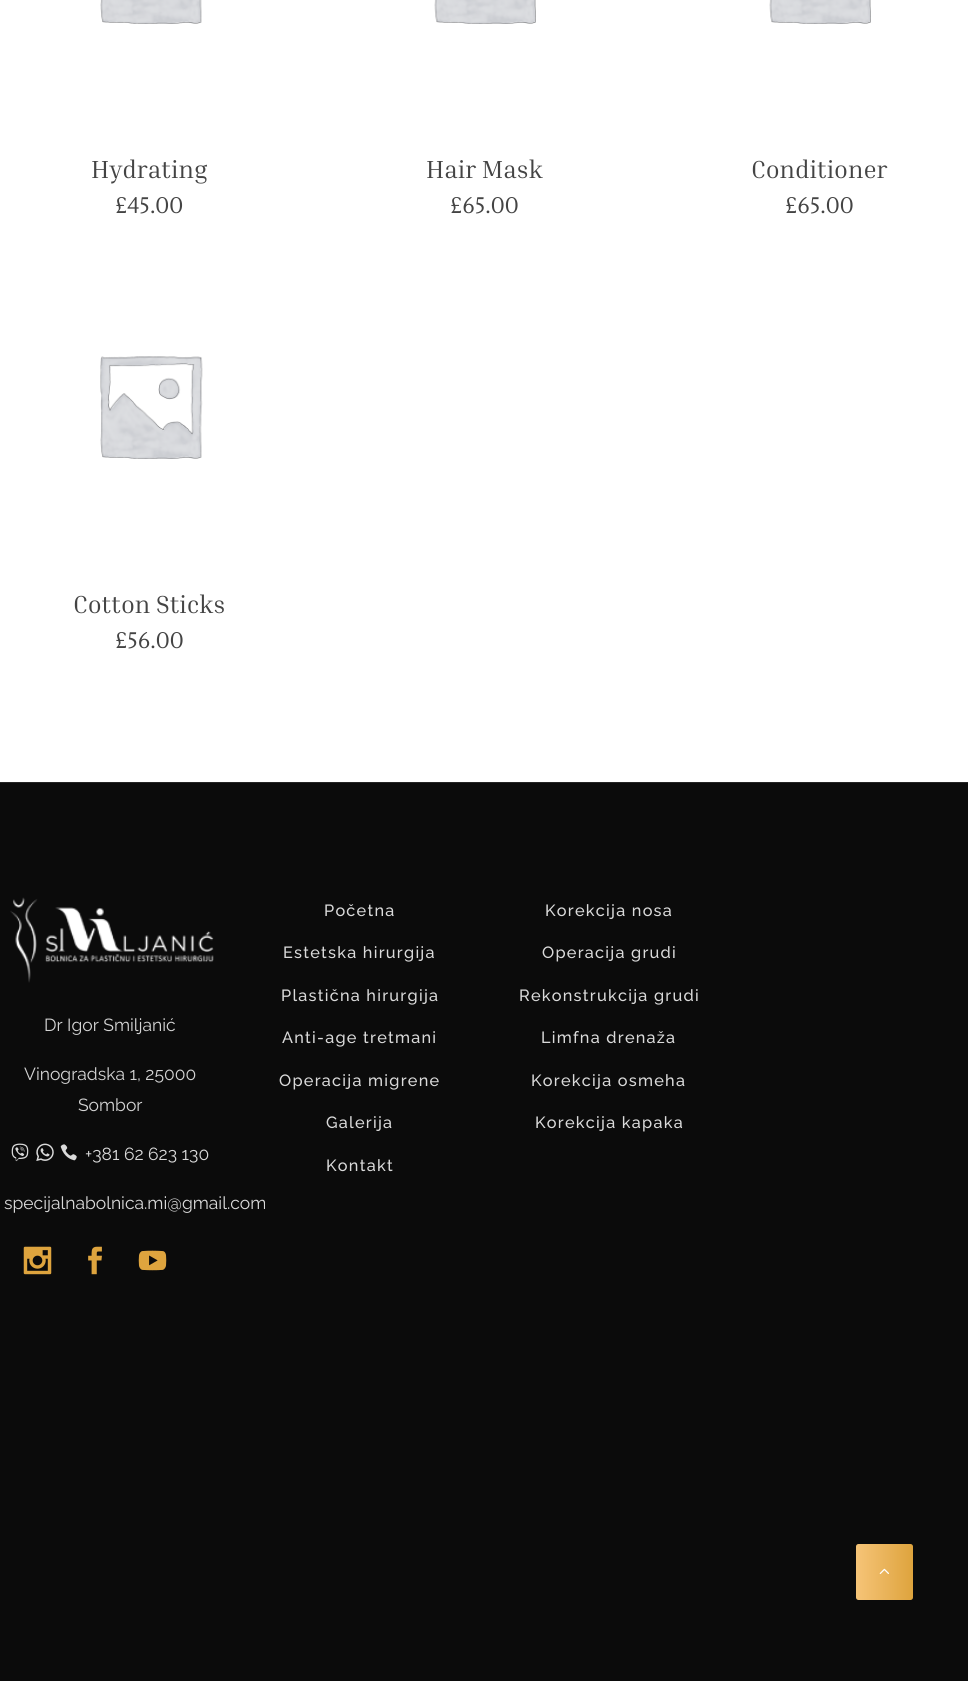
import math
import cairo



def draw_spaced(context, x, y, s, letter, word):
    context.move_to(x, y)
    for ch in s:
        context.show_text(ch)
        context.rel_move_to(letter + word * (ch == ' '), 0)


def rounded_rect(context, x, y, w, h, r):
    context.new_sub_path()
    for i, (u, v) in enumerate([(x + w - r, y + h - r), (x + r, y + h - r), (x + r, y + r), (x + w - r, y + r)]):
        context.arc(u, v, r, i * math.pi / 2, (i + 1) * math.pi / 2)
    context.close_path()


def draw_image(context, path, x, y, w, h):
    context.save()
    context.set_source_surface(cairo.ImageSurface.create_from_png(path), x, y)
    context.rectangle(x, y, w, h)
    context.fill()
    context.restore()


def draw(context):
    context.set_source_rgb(1, 1, 1)
    context.paint()
    draw_image(context, "images/1.png", 100, 0, 102, 24)
    draw_image(context, "images/2.png", 434, 0, 102, 24)
    draw_image(context, "images/2.png", 769, 0, 102, 24)
    draw_image(context, "images/3.png", 100, 356, 103, 103)
    context.set_source_rgb(37 / 255, 37 / 255, 37 / 255)
    context.rectangle(0, 782, 968, 1)
    context.fill()
    context.set_source_rgb(11 / 255, 11 / 255, 11 / 255)
    context.rectangle(0, 783, 968, 898)
    context.fill()
    draw_image(context, "images/4.png", 10, 897, 204, 86)
    draw_image(context, "images/5.png", 11, 1143, 18, 19)
    draw_image(context, "images/6.png", 36, 1143, 18, 18)
    draw_image(context, "images/7.png", 60, 1144, 17, 17)
    draw_image(context, "images/8.png", 23, 1246, 29, 29)
    draw_image(context, "images/9.png", 88, 1246, 14, 29)
    draw_image(context, "images/10.png", 138, 1250, 29, 21)
    gradient = cairo.LinearGradient(856, 1572, 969, 1572)
    gradient.add_color_stop_rgba(0, 246 / 255, 196 / 255, 120 / 255, 1)
    gradient.add_color_stop_rgba(0.5, 222 / 255, 164 / 255, 62 / 255, 1)
    gradient.add_color_stop_rgba(1, 246 / 255, 196 / 255, 120 / 255, 1)
    context.set_source(gradient)
    rounded_rect(context, 856, 1544, 57, 56, 2.5)
    context.fill()
    draw_image(context, "images/11.png", 879, 1568, 10, 6)
    context.select_font_face("Inria Serif")
    context.set_font_size(25)
    context.set_source_rgb(68 / 255, 68 / 255, 68 / 255)
    context.move_to(91, 178)
    context.show_text("Hydrating")
    context.select_font_face("Lustria")
    context.set_font_size(22.5)
    context.move_to(115, 213)
    context.show_text("£45.00")
    context.select_font_face("Inria Serif")
    context.set_font_size(25)
    context.move_to(426, 178)
    context.show_text("Hair Mask")
    context.select_font_face("Lustria")
    context.set_font_size(22.5)
    context.move_to(450, 213)
    context.show_text("£65.00")
    context.select_font_face("Inria Serif")
    context.set_font_size(25)
    context.move_to(751, 178)
    context.show_text("Conditioner")
    context.select_font_face("Lustria")
    context.set_font_size(22.5)
    context.move_to(785, 213)
    context.show_text("£65.00")
    context.select_font_face("Inria Serif")
    context.set_font_size(25)
    context.move_to(73, 613)
    context.show_text("Cotton Sticks")
    context.select_font_face("Lustria")
    context.set_font_size(22.5)
    context.move_to(115, 648)
    context.show_text("£56.00")
    context.select_font_face("Raleway")
    context.set_font_size(17.5)
    context.set_source_rgb(212 / 255, 212 / 255, 212 / 255)
    context.move_to(44, 1031)
    context.show_text("Dr Igor Smiljanić")
    context.move_to(24, 1080)
    context.show_text("Vinogradska 1, 25000")
    context.move_to(78, 1111)
    context.show_text("Sombor")
    context.set_source_rgb(218 / 255, 218 / 255, 218 / 255)
    context.move_to(85, 1160)
    context.show_text("+381 62 623 130")
    context.move_to(4, 1209)
    context.show_text("specijalnabolnica.mi@gmail.com")
    context.select_font_face("Raleway Medium")
    context.set_font_size(16.25)
    draw_spaced(context, 324, 916, "Početna", 1.25, 0)
    draw_spaced(context, 283, 958, "Estetska hirurgija", 1.25, 0)
    draw_spaced(context, 281, 1001, "Plastična hirurgija", 1.25, 0)
    draw_spaced(context, 282, 1043, "Anti-age tretmani", 1.25, 0)
    draw_spaced(context, 279, 1086, "Operacija migrene", 1.25, 0)
    draw_spaced(context, 326, 1128, "Galerija", 1.25, 0)
    draw_spaced(context, 326, 1171, "Kontakt", 1.25, 0)
    draw_spaced(context, 545, 916, "Korekcija nosa", 1.25, 0)
    draw_spaced(context, 542, 958, "Operacija grudi", 1.25, 0)
    draw_spaced(context, 519, 1001, "Rekonstrukcija grudi", 1.25, 0)
    draw_spaced(context, 541, 1043, "Limfna drenaža", 1.25, 0)
    draw_spaced(context, 531, 1086, "Korekcija osmeha", 1.25, 0)
    draw_spaced(context, 535, 1128, "Korekcija kapaka", 1.25, 0)


surface = cairo.ImageSurface(cairo.Format.RGB24, 968, 1681)
context = cairo.Context(surface)
options = cairo.FontOptions()
options.set_hint_metrics(cairo.HintMetrics.OFF)
options.set_hint_style(cairo.HintStyle.NONE)
context.set_font_options(options)
context.set_miter_limit(4)
draw(context)
surface.write_to_png("out.png")
